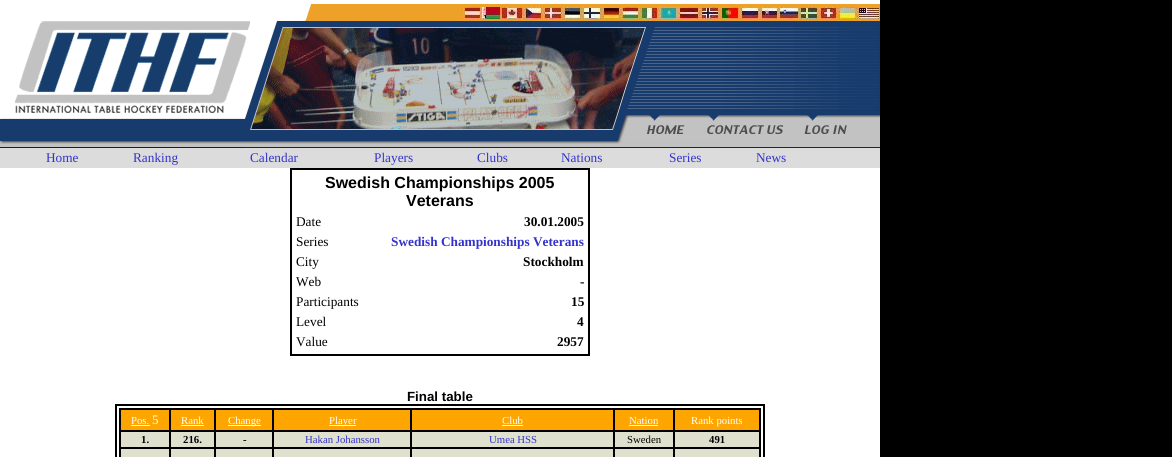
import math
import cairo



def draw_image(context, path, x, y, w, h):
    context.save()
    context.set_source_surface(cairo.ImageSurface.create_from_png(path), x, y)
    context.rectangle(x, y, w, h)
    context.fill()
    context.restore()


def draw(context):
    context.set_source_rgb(0, 0, 0)
    context.paint()
    context.set_source_rgb(1, 1, 1)
    context.rectangle(0, 0, 880, 457)
    context.fill()
    draw_image(context, "images/1.png", 276, 4, 604, 17)
    draw_image(context, "images/2.png", 460, 7, 420, 12)
    draw_image(context, "images/3.png", 0, 21, 880, 127)
    draw_image(context, "images/4.png", 15, 21, 235, 92)
    draw_image(context, "images/5.png", 250, 26, 396, 104)
    draw_image(context, "images/6.png", 647, 115, 38, 19)
    draw_image(context, "images/7.png", 707, 115, 77, 19)
    draw_image(context, "images/8.png", 804, 115, 43, 19)
    context.set_source_rgb(220 / 255, 220 / 255, 220 / 255)
    context.rectangle(0, 148, 880, 20)
    context.fill()
    context.rectangle(290.5, 168.5, 299, 187)
    context.set_source_rgb(0, 0, 0)
    context.set_line_width(1)
    context.stroke()
    context.rectangle(291.5, 169.5, 297, 185)
    context.stroke()
    context.rectangle(115.5, 404.5, 649, 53)
    context.stroke()
    context.rectangle(116.5, 405.5, 647, 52)
    context.stroke()
    context.rectangle(119.5, 408.5, 641, 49)
    context.stroke()
    context.set_source_rgb(1, 165 / 255, 0)
    context.rectangle(120.5, 409.5, 49, 21)
    context.fill_preserve()
    context.set_source_rgb(0, 0, 0)
    context.stroke()
    context.set_source_rgb(1, 1, 1)
    context.rectangle(131, 425, 19, 1)
    context.fill()
    context.set_source_rgb(1, 165 / 255, 0)
    context.rectangle(170.5, 409.5, 44, 21)
    context.fill_preserve()
    context.set_source_rgb(0, 0, 0)
    context.stroke()
    context.set_source_rgb(1, 1, 1)
    context.rectangle(181, 425, 23, 1)
    context.fill()
    context.set_source_rgb(1, 165 / 255, 0)
    context.rectangle(215.5, 409.5, 57, 21)
    context.fill_preserve()
    context.set_source_rgb(0, 0, 0)
    context.stroke()
    context.set_source_rgb(1, 1, 1)
    context.rectangle(228, 425, 33, 1)
    context.fill()
    context.set_source_rgb(1, 165 / 255, 0)
    context.rectangle(273.5, 409.5, 137, 21)
    context.fill_preserve()
    context.set_source_rgb(0, 0, 0)
    context.stroke()
    context.set_source_rgb(1, 1, 1)
    context.rectangle(329, 425, 27, 1)
    context.fill()
    context.set_source_rgb(1, 165 / 255, 0)
    context.rectangle(411.5, 409.5, 202, 21)
    context.fill_preserve()
    context.set_source_rgb(0, 0, 0)
    context.stroke()
    context.set_source_rgb(1, 1, 1)
    context.rectangle(502, 425, 21, 1)
    context.fill()
    context.set_source_rgb(1, 165 / 255, 0)
    context.rectangle(614.5, 409.5, 59, 21)
    context.fill_preserve()
    context.set_source_rgb(0, 0, 0)
    context.stroke()
    context.set_source_rgb(1, 1, 1)
    context.rectangle(629, 425, 29, 1)
    context.fill()
    context.set_source_rgb(1, 165 / 255, 0)
    context.rectangle(674.5, 409.5, 85, 21)
    context.fill_preserve()
    context.set_source_rgb(0, 0, 0)
    context.stroke()
    context.set_source_rgb(224 / 255, 224 / 255, 206 / 255)
    context.rectangle(120.5, 431.5, 49, 16)
    context.fill_preserve()
    context.set_source_rgb(0, 0, 0)
    context.stroke()
    context.set_source_rgb(224 / 255, 224 / 255, 206 / 255)
    context.rectangle(170.5, 431.5, 44, 16)
    context.fill_preserve()
    context.set_source_rgb(0, 0, 0)
    context.stroke()
    context.set_source_rgb(224 / 255, 224 / 255, 206 / 255)
    context.rectangle(215.5, 431.5, 57, 16)
    context.fill_preserve()
    context.set_source_rgb(0, 0, 0)
    context.stroke()
    context.set_source_rgb(224 / 255, 224 / 255, 206 / 255)
    context.rectangle(273.5, 431.5, 137, 16)
    context.fill_preserve()
    context.set_source_rgb(0, 0, 0)
    context.stroke()
    context.set_source_rgb(224 / 255, 224 / 255, 206 / 255)
    context.rectangle(411.5, 431.5, 202, 16)
    context.fill_preserve()
    context.set_source_rgb(0, 0, 0)
    context.stroke()
    context.set_source_rgb(224 / 255, 224 / 255, 206 / 255)
    context.rectangle(614.5, 431.5, 59, 16)
    context.fill_preserve()
    context.set_source_rgb(0, 0, 0)
    context.stroke()
    context.set_source_rgb(224 / 255, 224 / 255, 206 / 255)
    context.rectangle(674.5, 431.5, 85, 16)
    context.fill_preserve()
    context.set_source_rgb(0, 0, 0)
    context.stroke()
    context.set_source_rgb(224 / 255, 224 / 255, 206 / 255)
    context.rectangle(120.5, 448.5, 49, 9)
    context.fill_preserve()
    context.set_source_rgb(0, 0, 0)
    context.stroke()
    context.set_source_rgb(224 / 255, 224 / 255, 206 / 255)
    context.rectangle(170.5, 448.5, 44, 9)
    context.fill_preserve()
    context.set_source_rgb(0, 0, 0)
    context.stroke()
    context.set_source_rgb(224 / 255, 224 / 255, 206 / 255)
    context.rectangle(215.5, 448.5, 57, 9)
    context.fill_preserve()
    context.set_source_rgb(0, 0, 0)
    context.stroke()
    context.set_source_rgb(224 / 255, 224 / 255, 206 / 255)
    context.rectangle(273.5, 448.5, 137, 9)
    context.fill_preserve()
    context.set_source_rgb(0, 0, 0)
    context.stroke()
    context.set_source_rgb(224 / 255, 224 / 255, 206 / 255)
    context.rectangle(411.5, 448.5, 202, 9)
    context.fill_preserve()
    context.set_source_rgb(0, 0, 0)
    context.stroke()
    context.set_source_rgb(224 / 255, 224 / 255, 206 / 255)
    context.rectangle(614.5, 448.5, 59, 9)
    context.fill_preserve()
    context.set_source_rgb(0, 0, 0)
    context.stroke()
    context.set_source_rgb(224 / 255, 224 / 255, 206 / 255)
    context.rectangle(674.5, 448.5, 85, 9)
    context.fill_preserve()
    context.set_source_rgb(0, 0, 0)
    context.stroke()
    context.select_font_face("Liberation Serif")
    context.set_font_size(13.3)
    context.set_source_rgb(51 / 255, 51 / 255, 204 / 255)
    context.move_to(46, 162)
    context.show_text("Home")
    context.move_to(133, 162)
    context.show_text("Ranking")
    context.move_to(250, 162)
    context.show_text("Calendar")
    context.move_to(374, 162)
    context.show_text("Players")
    context.move_to(477, 162)
    context.show_text("Clubs")
    context.move_to(561, 162)
    context.show_text("Nations")
    context.move_to(669, 162)
    context.show_text("Series")
    context.move_to(756, 162)
    context.show_text("News")
    context.select_font_face("Liberation Sans", cairo.FontSlant.NORMAL, cairo.FontWeight.BOLD)
    context.set_font_size(16)
    context.set_source_rgb(0, 0, 0)
    context.move_to(325, 188)
    context.show_text("Swedish Championships 2005")
    context.move_to(406, 206)
    context.show_text("Veterans")
    context.select_font_face("Liberation Serif")
    context.set_font_size(13.3)
    context.move_to(296, 226)
    context.show_text("Date")
    context.select_font_face("Liberation Serif", cairo.FontSlant.NORMAL, cairo.FontWeight.BOLD)
    context.move_to(524, 226)
    context.show_text("30.01.2005")
    context.select_font_face("Liberation Serif")
    context.move_to(296, 246)
    context.show_text("Series")
    context.select_font_face("Liberation Serif", cairo.FontSlant.NORMAL, cairo.FontWeight.BOLD)
    context.set_source_rgb(51 / 255, 51 / 255, 204 / 255)
    context.move_to(391, 246)
    context.show_text("Swedish Championships Veterans")
    context.select_font_face("Liberation Serif")
    context.set_source_rgb(0, 0, 0)
    context.move_to(296, 266)
    context.show_text("City")
    context.select_font_face("Liberation Serif", cairo.FontSlant.NORMAL, cairo.FontWeight.BOLD)
    context.move_to(523, 266)
    context.show_text("Stockholm")
    context.select_font_face("Liberation Serif")
    context.move_to(296, 286)
    context.show_text("Web")
    context.select_font_face("Liberation Serif", cairo.FontSlant.NORMAL, cairo.FontWeight.BOLD)
    context.move_to(580, 286)
    context.show_text("-")
    context.select_font_face("Liberation Serif")
    context.move_to(296, 306)
    context.show_text("Participants")
    context.select_font_face("Liberation Serif", cairo.FontSlant.NORMAL, cairo.FontWeight.BOLD)
    context.move_to(571, 306)
    context.show_text("15")
    context.select_font_face("Liberation Serif")
    context.move_to(296, 326)
    context.show_text("Level")
    context.select_font_face("Liberation Serif", cairo.FontSlant.NORMAL, cairo.FontWeight.BOLD)
    context.move_to(577, 326)
    context.show_text("4")
    context.select_font_face("Liberation Serif")
    context.move_to(296, 346)
    context.show_text("Value")
    context.select_font_face("Liberation Serif", cairo.FontSlant.NORMAL, cairo.FontWeight.BOLD)
    context.move_to(557, 346)
    context.show_text("2957")
    context.select_font_face("Liberation Sans", cairo.FontSlant.NORMAL, cairo.FontWeight.BOLD)
    context.move_to(407, 401)
    context.show_text("Final table")
    context.select_font_face("Liberation Serif")
    context.set_font_size(10.75)
    context.set_source_rgb(1, 1, 1)
    context.move_to(131, 424)
    context.show_text("Pos.")
    context.set_font_size(13)
    context.move_to(152, 424)
    context.show_text("5")
    context.set_font_size(10.75)
    context.move_to(181, 424)
    context.show_text("Rank")
    context.move_to(228, 424)
    context.show_text("Change")
    context.move_to(329, 424)
    context.show_text("Player")
    context.move_to(502, 424)
    context.show_text("Club")
    context.move_to(629, 424)
    context.show_text("Nation")
    context.move_to(691, 424)
    context.show_text("Rank points")
    context.select_font_face("Liberation Serif", cairo.FontSlant.NORMAL, cairo.FontWeight.BOLD)
    context.set_source_rgb(0, 0, 0)
    context.move_to(141, 443)
    context.show_text("1.")
    context.move_to(183, 443)
    context.show_text("216.")
    context.move_to(243, 443)
    context.show_text("-")
    context.select_font_face("Liberation Serif")
    context.set_source_rgb(51 / 255, 51 / 255, 204 / 255)
    context.move_to(305, 443)
    context.show_text("Hakan Johansson")
    context.move_to(489, 443)
    context.show_text("Umea HSS")
    context.set_source_rgb(0, 0, 0)
    context.move_to(627, 443)
    context.show_text("Sweden")
    context.select_font_face("Liberation Serif", cairo.FontSlant.NORMAL, cairo.FontWeight.BOLD)
    context.move_to(709, 443)
    context.show_text("491")


surface = cairo.ImageSurface(cairo.Format.RGB24, 1172, 457)
context = cairo.Context(surface)
options = cairo.FontOptions()
options.set_hint_metrics(cairo.HintMetrics.OFF)
options.set_hint_style(cairo.HintStyle.NONE)
context.set_font_options(options)
context.set_miter_limit(4)
draw(context)
surface.write_to_png("out.png")
